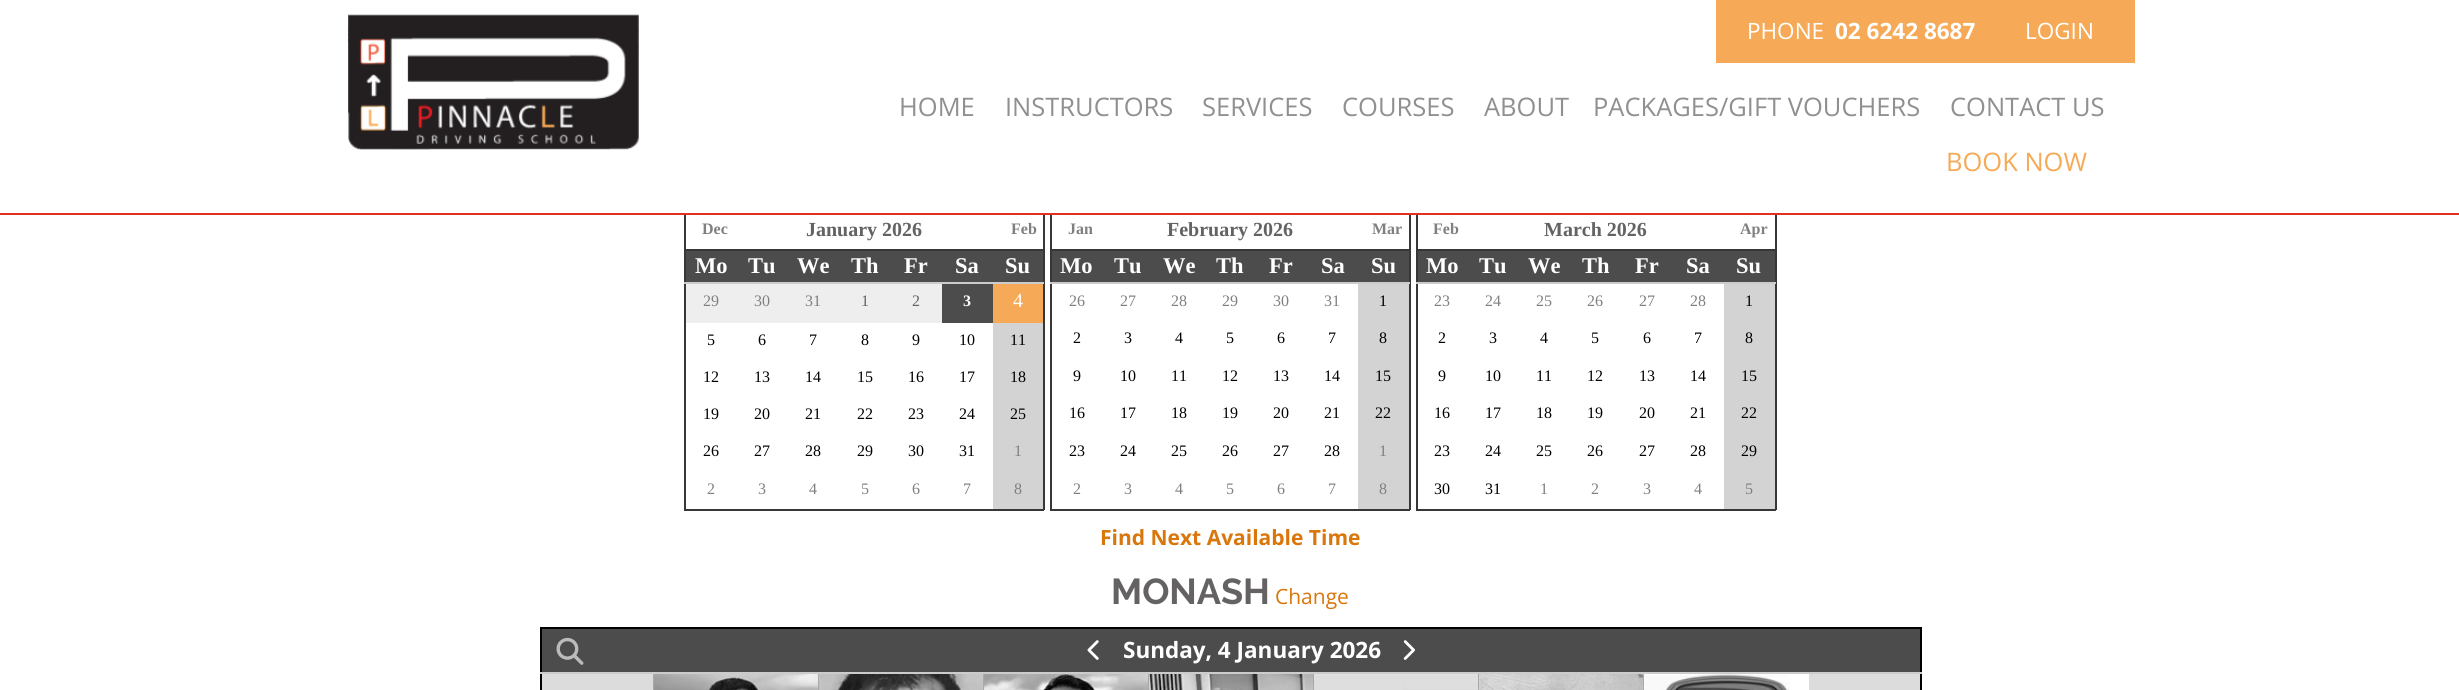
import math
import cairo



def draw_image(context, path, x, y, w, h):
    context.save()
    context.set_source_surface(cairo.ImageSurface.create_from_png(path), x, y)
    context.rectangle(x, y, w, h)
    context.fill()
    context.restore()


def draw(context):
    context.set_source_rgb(1, 1, 1)
    context.paint()
    context.set_source_rgb(55 / 255, 55 / 255, 55 / 255)
    context.rectangle(1043, 210, 2, 300)
    context.fill()
    context.rectangle(684, 509, 360, 2)
    context.fill()
    context.rectangle(684, 210, 2, 300)
    context.fill()
    context.rectangle(1409, 210, 2, 300)
    context.fill()
    context.rectangle(1050, 509, 360, 2)
    context.fill()
    context.rectangle(1050, 210, 2, 300)
    context.fill()
    context.rectangle(1775, 210, 2, 300)
    context.fill()
    context.rectangle(1416, 509, 360, 2)
    context.fill()
    context.rectangle(1416, 210, 2, 300)
    context.fill()
    context.set_source_rgb(1, 1, 1)
    context.rectangle(684, 210, 1093, 3)
    context.fill()
    context.set_source_rgb(225 / 255, 49 / 255, 38 / 255)
    context.rectangle(0, 213, 2459, 2)
    context.fill()
    draw_image(context, "images/1.png", 348, 14, 291, 136)
    context.set_source_rgb(246 / 255, 169 / 255, 86 / 255)
    context.rectangle(1716, 0, 419, 63)
    context.fill()
    context.set_source_rgb(55 / 255, 55 / 255, 55 / 255)
    context.rectangle(684, 249, 360, 2)
    context.fill()
    context.set_source_rgb(76 / 255, 76 / 255, 76 / 255)
    context.rectangle(686, 251, 357, 31)
    context.fill()
    context.set_source_rgb(204 / 255, 204 / 255, 204 / 255)
    context.rectangle(684, 282, 360, 2)
    context.fill()
    context.set_source_rgb(238 / 255, 238 / 255, 238 / 255)
    context.rectangle(686, 284, 256, 39)
    context.fill()
    context.set_source_rgb(76 / 255, 76 / 255, 76 / 255)
    context.rectangle(942, 284, 51, 39)
    context.fill()
    context.set_source_rgb(246 / 255, 169 / 255, 86 / 255)
    context.rectangle(993, 284, 50, 39)
    context.fill()
    context.set_source_rgb(211 / 255, 211 / 255, 211 / 255)
    context.rectangle(993, 323, 50, 186)
    context.fill()
    context.set_source_rgb(55 / 255, 55 / 255, 55 / 255)
    context.rectangle(1050, 249, 360, 2)
    context.fill()
    context.set_source_rgb(76 / 255, 76 / 255, 76 / 255)
    context.rectangle(1052, 251, 357, 31)
    context.fill()
    context.set_source_rgb(204 / 255, 204 / 255, 204 / 255)
    context.rectangle(1050, 282, 360, 2)
    context.fill()
    context.set_source_rgb(211 / 255, 211 / 255, 211 / 255)
    context.rectangle(1358, 284, 51, 225)
    context.fill()
    context.set_source_rgb(55 / 255, 55 / 255, 55 / 255)
    context.rectangle(1416, 249, 360, 2)
    context.fill()
    context.set_source_rgb(76 / 255, 76 / 255, 76 / 255)
    context.rectangle(1418, 251, 357, 31)
    context.fill()
    context.set_source_rgb(204 / 255, 204 / 255, 204 / 255)
    context.rectangle(1416, 282, 360, 2)
    context.fill()
    context.set_source_rgb(211 / 255, 211 / 255, 211 / 255)
    context.rectangle(1724, 284, 51, 225)
    context.fill()
    context.set_source_rgb(0, 0, 0)
    context.rectangle(540, 627, 1382, 2)
    context.fill()
    context.rectangle(540, 627, 2, 63)
    context.fill()
    context.rectangle(1920, 627, 2, 63)
    context.fill()
    context.set_source_rgb(76 / 255, 76 / 255, 76 / 255)
    context.rectangle(542, 629, 1378, 43)
    context.fill()
    context.set_source_rgb(169 / 255, 169 / 255, 169 / 255)
    context.rectangle(653, 672, 1, 18)
    context.fill()
    context.rectangle(818, 672, 1, 18)
    context.fill()
    context.rectangle(983, 672, 1, 18)
    context.fill()
    context.rectangle(1148, 672, 1, 18)
    context.fill()
    context.rectangle(1313, 672, 1, 18)
    context.fill()
    context.rectangle(1478, 672, 1, 18)
    context.fill()
    context.rectangle(1643, 672, 1, 18)
    context.fill()
    context.set_source_rgb(204 / 255, 204 / 255, 204 / 255)
    context.rectangle(540, 672, 1382, 2)
    context.fill()
    draw_image(context, "images/2.png", 556, 637, 28, 28)
    draw_image(context, "images/3.png", 1087, 640, 12, 20)
    draw_image(context, "images/4.png", 1403, 640, 12, 20)
    context.set_source_rgb(220 / 255, 220 / 255, 220 / 255)
    context.rectangle(542, 674, 111, 16)
    context.fill()
    draw_image(context, "images/5.png", 654, 674, 164, 16)
    draw_image(context, "images/6.png", 819, 674, 164, 16)
    draw_image(context, "images/7.png", 984, 674, 164, 16)
    draw_image(context, "images/8.png", 1149, 674, 164, 16)
    draw_image(context, "images/9.png", 1314, 674, 164, 16)
    draw_image(context, "images/10.png", 1479, 674, 164, 16)
    draw_image(context, "images/11.png", 1644, 674, 146, 16)
    context.rectangle(1809, 674, 111, 16)
    context.fill()
    context.select_font_face("Open Sans")
    context.set_font_size(22.5)
    context.set_source_rgb(1, 1, 1)
    context.move_to(1747, 39)
    context.show_text("PHONE")
    context.select_font_face("Open Sans", cairo.FontSlant.NORMAL, cairo.FontWeight.BOLD)
    context.move_to(1835, 39)
    context.show_text("02 6242 8687")
    context.select_font_face("Open Sans")
    context.move_to(2025, 39)
    context.show_text("LOGIN")
    context.set_font_size(25.5)
    context.set_source_rgb(144 / 255, 144 / 255, 144 / 255)
    context.move_to(899, 116)
    context.show_text("HOME")
    context.move_to(1005, 116)
    context.show_text("INSTRUCTORS")
    context.move_to(1202, 116)
    context.show_text("SERVICES")
    context.move_to(1342, 116)
    context.show_text("COURSES")
    context.move_to(1484, 116)
    context.show_text("ABOUT")
    context.move_to(1593, 116)
    context.show_text("PACKAGES/GIFT VOUCHERS")
    context.move_to(1950, 116)
    context.show_text("CONTACT US")
    context.set_source_rgb(246 / 255, 169 / 255, 86 / 255)
    context.move_to(1946, 171)
    context.show_text("BOOK NOW")
    context.select_font_face("Liberation Serif", cairo.FontSlant.NORMAL, cairo.FontWeight.BOLD)
    context.set_font_size(16)
    context.set_source_rgb(128 / 255, 128 / 255, 128 / 255)
    context.move_to(702, 234)
    context.show_text("Dec")
    context.set_font_size(20)
    context.set_source_rgb(100 / 255, 98 / 255, 99 / 255)
    context.move_to(806, 236)
    context.show_text("January 2026")
    context.set_font_size(16)
    context.set_source_rgb(128 / 255, 128 / 255, 128 / 255)
    context.move_to(1011, 234)
    context.show_text("Feb")
    context.set_font_size(22.5)
    context.set_source_rgb(1, 1, 1)
    context.move_to(695, 273)
    context.show_text("Mo")
    context.move_to(748, 273)
    context.show_text("Tu")
    context.move_to(797, 273)
    context.show_text("We")
    context.move_to(851, 273)
    context.show_text("Th")
    context.move_to(904, 273)
    context.show_text("Fr")
    context.move_to(955, 273)
    context.show_text("Sa")
    context.move_to(1005, 273)
    context.show_text("Su")
    context.select_font_face("Liberation Serif")
    context.set_font_size(16)
    context.set_source_rgb(128 / 255, 128 / 255, 128 / 255)
    context.move_to(703, 306)
    context.show_text("29")
    context.move_to(754, 306)
    context.show_text("30")
    context.move_to(805, 306)
    context.show_text("31")
    context.set_source_rgb(100 / 255, 98 / 255, 99 / 255)
    context.move_to(861, 306)
    context.show_text("1")
    context.move_to(912, 306)
    context.show_text("2")
    context.select_font_face("Liberation Serif", cairo.FontSlant.NORMAL, cairo.FontWeight.BOLD)
    context.set_source_rgb(1, 1, 1)
    context.move_to(963, 306)
    context.show_text("3")
    context.select_font_face("Liberation Serif")
    context.set_font_size(20)
    context.move_to(1013, 307)
    context.show_text("4")
    context.set_font_size(16)
    context.set_source_rgb(0, 0, 0)
    context.move_to(707, 345)
    context.show_text("5")
    context.move_to(758, 345)
    context.show_text("6")
    context.move_to(809, 345)
    context.show_text("7")
    context.move_to(861, 345)
    context.show_text("8")
    context.move_to(912, 345)
    context.show_text("9")
    context.move_to(959, 345)
    context.show_text("10")
    context.move_to(1010, 345)
    context.show_text("11")
    context.move_to(703, 382)
    context.show_text("12")
    context.move_to(754, 382)
    context.show_text("13")
    context.move_to(805, 382)
    context.show_text("14")
    context.move_to(857, 382)
    context.show_text("15")
    context.move_to(908, 382)
    context.show_text("16")
    context.move_to(959, 382)
    context.show_text("17")
    context.move_to(1010, 382)
    context.show_text("18")
    context.move_to(703, 419)
    context.show_text("19")
    context.move_to(754, 419)
    context.show_text("20")
    context.move_to(805, 419)
    context.show_text("21")
    context.move_to(857, 419)
    context.show_text("22")
    context.move_to(908, 419)
    context.show_text("23")
    context.move_to(959, 419)
    context.show_text("24")
    context.move_to(1010, 419)
    context.show_text("25")
    context.move_to(703, 456)
    context.show_text("26")
    context.move_to(754, 456)
    context.show_text("27")
    context.move_to(805, 456)
    context.show_text("28")
    context.move_to(857, 456)
    context.show_text("29")
    context.move_to(908, 456)
    context.show_text("30")
    context.move_to(959, 456)
    context.show_text("31")
    context.set_source_rgb(128 / 255, 128 / 255, 128 / 255)
    context.move_to(1014, 456)
    context.show_text("1")
    context.move_to(707, 494)
    context.show_text("2")
    context.move_to(758, 494)
    context.show_text("3")
    context.move_to(809, 494)
    context.show_text("4")
    context.move_to(861, 494)
    context.show_text("5")
    context.move_to(912, 494)
    context.show_text("6")
    context.move_to(963, 494)
    context.show_text("7")
    context.move_to(1014, 494)
    context.show_text("8")
    context.select_font_face("Liberation Serif", cairo.FontSlant.NORMAL, cairo.FontWeight.BOLD)
    context.move_to(1068, 234)
    context.show_text("Jan")
    context.set_font_size(20)
    context.set_source_rgb(100 / 255, 98 / 255, 99 / 255)
    context.move_to(1167, 236)
    context.show_text("February 2026")
    context.set_font_size(16)
    context.set_source_rgb(128 / 255, 128 / 255, 128 / 255)
    context.move_to(1372, 234)
    context.show_text("Mar")
    context.set_font_size(22.5)
    context.set_source_rgb(1, 1, 1)
    context.move_to(1060, 273)
    context.show_text("Mo")
    context.move_to(1114, 273)
    context.show_text("Tu")
    context.move_to(1163, 273)
    context.show_text("We")
    context.move_to(1216, 273)
    context.show_text("Th")
    context.move_to(1269, 273)
    context.show_text("Fr")
    context.move_to(1321, 273)
    context.show_text("Sa")
    context.move_to(1371, 273)
    context.show_text("Su")
    context.select_font_face("Liberation Serif")
    context.set_font_size(16)
    context.set_source_rgb(128 / 255, 128 / 255, 128 / 255)
    context.move_to(1069, 306)
    context.show_text("26")
    context.move_to(1120, 306)
    context.show_text("27")
    context.move_to(1171, 306)
    context.show_text("28")
    context.move_to(1222, 306)
    context.show_text("29")
    context.move_to(1273, 306)
    context.show_text("30")
    context.move_to(1324, 306)
    context.show_text("31")
    context.set_source_rgb(0, 0, 0)
    context.move_to(1379, 306)
    context.show_text("1")
    context.move_to(1073, 343)
    context.show_text("2")
    context.move_to(1124, 343)
    context.show_text("3")
    context.move_to(1175, 343)
    context.show_text("4")
    context.move_to(1226, 343)
    context.show_text("5")
    context.move_to(1277, 343)
    context.show_text("6")
    context.move_to(1328, 343)
    context.show_text("7")
    context.move_to(1379, 343)
    context.show_text("8")
    context.move_to(1073, 381)
    context.show_text("9")
    context.move_to(1120, 381)
    context.show_text("10")
    context.move_to(1171, 381)
    context.show_text("11")
    context.move_to(1222, 381)
    context.show_text("12")
    context.move_to(1273, 381)
    context.show_text("13")
    context.move_to(1324, 381)
    context.show_text("14")
    context.move_to(1375, 381)
    context.show_text("15")
    context.move_to(1069, 418)
    context.show_text("16")
    context.move_to(1120, 418)
    context.show_text("17")
    context.move_to(1171, 418)
    context.show_text("18")
    context.move_to(1222, 418)
    context.show_text("19")
    context.move_to(1273, 418)
    context.show_text("20")
    context.move_to(1324, 418)
    context.show_text("21")
    context.move_to(1375, 418)
    context.show_text("22")
    context.move_to(1069, 456)
    context.show_text("23")
    context.move_to(1120, 456)
    context.show_text("24")
    context.move_to(1171, 456)
    context.show_text("25")
    context.move_to(1222, 456)
    context.show_text("26")
    context.move_to(1273, 456)
    context.show_text("27")
    context.move_to(1324, 456)
    context.show_text("28")
    context.set_source_rgb(128 / 255, 128 / 255, 128 / 255)
    context.move_to(1379, 456)
    context.show_text("1")
    context.move_to(1073, 494)
    context.show_text("2")
    context.move_to(1124, 494)
    context.show_text("3")
    context.move_to(1175, 494)
    context.show_text("4")
    context.move_to(1226, 494)
    context.show_text("5")
    context.move_to(1277, 494)
    context.show_text("6")
    context.move_to(1328, 494)
    context.show_text("7")
    context.move_to(1379, 494)
    context.show_text("8")
    context.select_font_face("Liberation Serif", cairo.FontSlant.NORMAL, cairo.FontWeight.BOLD)
    context.move_to(1433, 234)
    context.show_text("Feb")
    context.set_font_size(20)
    context.set_source_rgb(100 / 255, 98 / 255, 99 / 255)
    context.move_to(1544, 236)
    context.show_text("March 2026")
    context.set_font_size(16)
    context.set_source_rgb(128 / 255, 128 / 255, 128 / 255)
    context.move_to(1740, 234)
    context.show_text("Apr")
    context.set_font_size(22.5)
    context.set_source_rgb(1, 1, 1)
    context.move_to(1426, 273)
    context.show_text("Mo")
    context.move_to(1479, 273)
    context.show_text("Tu")
    context.move_to(1528, 273)
    context.show_text("We")
    context.move_to(1582, 273)
    context.show_text("Th")
    context.move_to(1635, 273)
    context.show_text("Fr")
    context.move_to(1686, 273)
    context.show_text("Sa")
    context.move_to(1736, 273)
    context.show_text("Su")
    context.select_font_face("Liberation Serif")
    context.set_font_size(16)
    context.set_source_rgb(128 / 255, 128 / 255, 128 / 255)
    context.move_to(1434, 306)
    context.show_text("23")
    context.move_to(1485, 306)
    context.show_text("24")
    context.move_to(1536, 306)
    context.show_text("25")
    context.move_to(1587, 306)
    context.show_text("26")
    context.move_to(1639, 306)
    context.show_text("27")
    context.move_to(1690, 306)
    context.show_text("28")
    context.set_source_rgb(0, 0, 0)
    context.move_to(1745, 306)
    context.show_text("1")
    context.move_to(1438, 343)
    context.show_text("2")
    context.move_to(1489, 343)
    context.show_text("3")
    context.move_to(1540, 343)
    context.show_text("4")
    context.move_to(1591, 343)
    context.show_text("5")
    context.move_to(1643, 343)
    context.show_text("6")
    context.move_to(1694, 343)
    context.show_text("7")
    context.move_to(1745, 343)
    context.show_text("8")
    context.move_to(1438, 381)
    context.show_text("9")
    context.move_to(1485, 381)
    context.show_text("10")
    context.move_to(1536, 381)
    context.show_text("11")
    context.move_to(1587, 381)
    context.show_text("12")
    context.move_to(1639, 381)
    context.show_text("13")
    context.move_to(1690, 381)
    context.show_text("14")
    context.move_to(1741, 381)
    context.show_text("15")
    context.move_to(1434, 418)
    context.show_text("16")
    context.move_to(1485, 418)
    context.show_text("17")
    context.move_to(1536, 418)
    context.show_text("18")
    context.move_to(1587, 418)
    context.show_text("19")
    context.move_to(1639, 418)
    context.show_text("20")
    context.move_to(1690, 418)
    context.show_text("21")
    context.move_to(1741, 418)
    context.show_text("22")
    context.move_to(1434, 456)
    context.show_text("23")
    context.move_to(1485, 456)
    context.show_text("24")
    context.move_to(1536, 456)
    context.show_text("25")
    context.move_to(1587, 456)
    context.show_text("26")
    context.move_to(1639, 456)
    context.show_text("27")
    context.move_to(1690, 456)
    context.show_text("28")
    context.move_to(1741, 456)
    context.show_text("29")
    context.move_to(1434, 494)
    context.show_text("30")
    context.move_to(1485, 494)
    context.show_text("31")
    context.set_source_rgb(128 / 255, 128 / 255, 128 / 255)
    context.move_to(1540, 494)
    context.show_text("1")
    context.move_to(1591, 494)
    context.show_text("2")
    context.move_to(1643, 494)
    context.show_text("3")
    context.move_to(1694, 494)
    context.show_text("4")
    context.move_to(1745, 494)
    context.show_text("5")
    context.select_font_face("Open Sans", cairo.FontSlant.NORMAL, cairo.FontWeight.BOLD)
    context.set_font_size(21)
    context.set_source_rgb(217 / 255, 119 / 255, 12 / 255)
    context.move_to(1100, 545)
    context.show_text("Find Next Available Time")
    context.select_font_face("Raleway", cairo.FontSlant.NORMAL, cairo.FontWeight.BOLD)
    context.set_font_size(36)
    context.set_source_rgb(100 / 255, 98 / 255, 99 / 255)
    context.move_to(1111, 604)
    context.show_text("MONASH")
    context.select_font_face("Open Sans")
    context.set_font_size(21)
    context.set_source_rgb(217 / 255, 119 / 255, 12 / 255)
    context.move_to(1275, 604)
    context.show_text("Change")
    context.select_font_face("Open Sans", cairo.FontSlant.NORMAL, cairo.FontWeight.BOLD)
    context.set_font_size(22.5)
    context.set_source_rgb(1, 1, 1)
    context.move_to(1123, 658)
    context.show_text("Sunday, 4 January 2026")


surface = cairo.ImageSurface(cairo.Format.RGB24, 2459, 690)
context = cairo.Context(surface)
options = cairo.FontOptions()
options.set_hint_metrics(cairo.HintMetrics.OFF)
options.set_hint_style(cairo.HintStyle.NONE)
context.set_font_options(options)
context.set_miter_limit(4)
draw(context)
surface.write_to_png("out.png")
